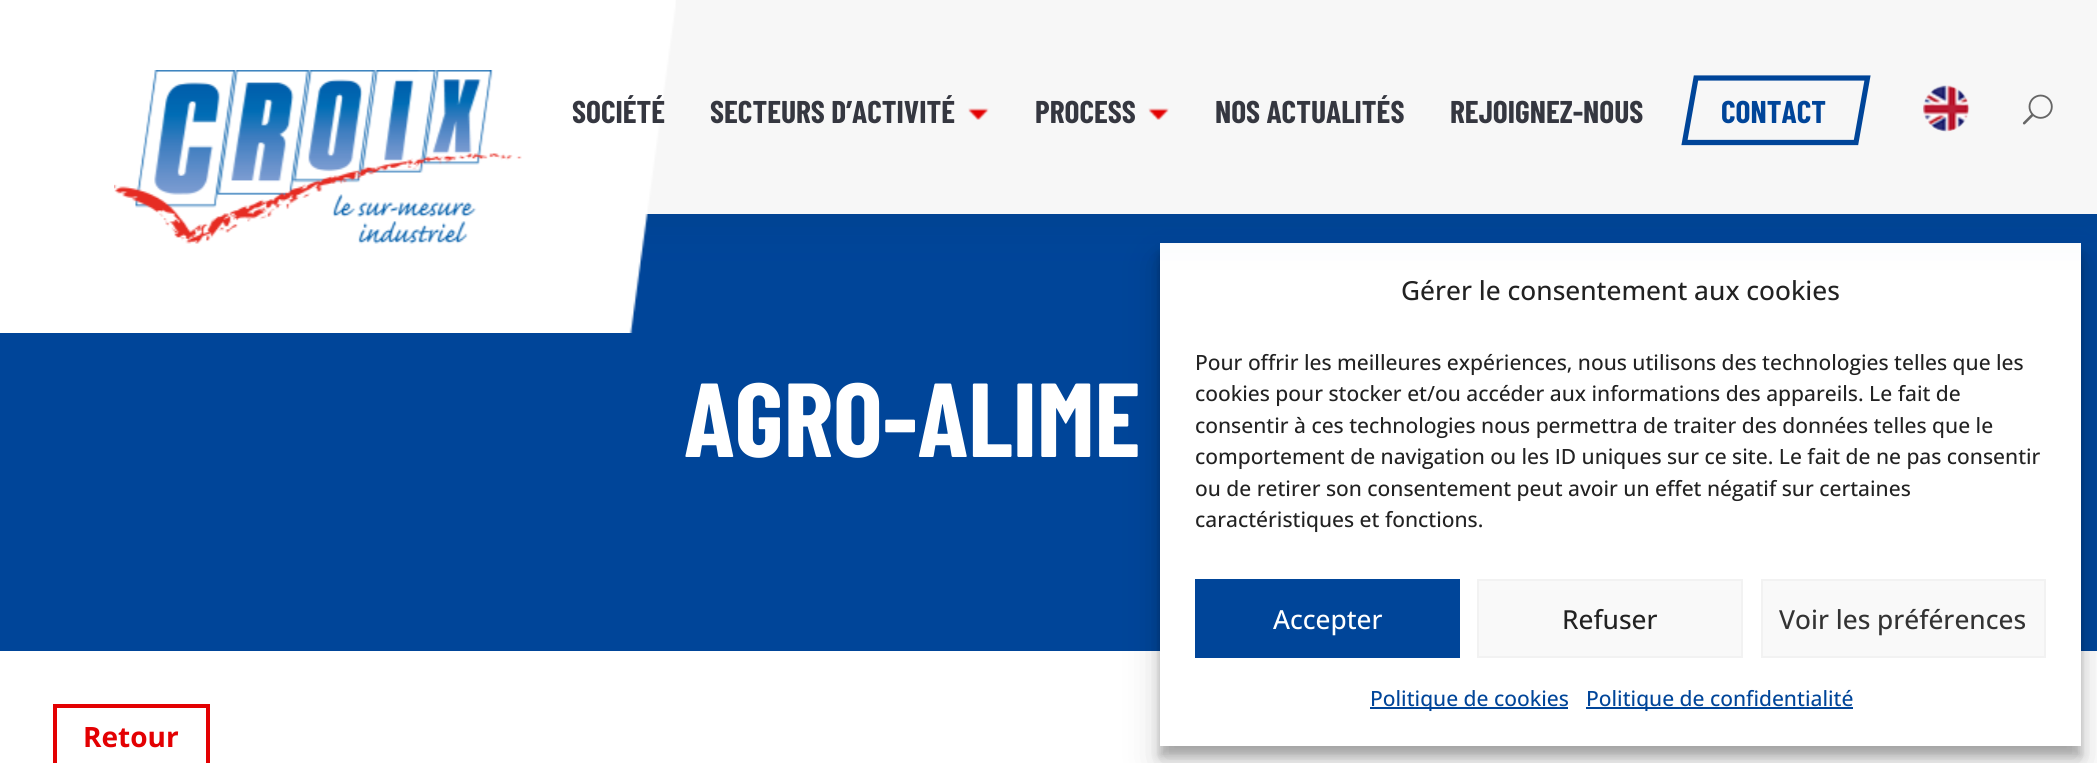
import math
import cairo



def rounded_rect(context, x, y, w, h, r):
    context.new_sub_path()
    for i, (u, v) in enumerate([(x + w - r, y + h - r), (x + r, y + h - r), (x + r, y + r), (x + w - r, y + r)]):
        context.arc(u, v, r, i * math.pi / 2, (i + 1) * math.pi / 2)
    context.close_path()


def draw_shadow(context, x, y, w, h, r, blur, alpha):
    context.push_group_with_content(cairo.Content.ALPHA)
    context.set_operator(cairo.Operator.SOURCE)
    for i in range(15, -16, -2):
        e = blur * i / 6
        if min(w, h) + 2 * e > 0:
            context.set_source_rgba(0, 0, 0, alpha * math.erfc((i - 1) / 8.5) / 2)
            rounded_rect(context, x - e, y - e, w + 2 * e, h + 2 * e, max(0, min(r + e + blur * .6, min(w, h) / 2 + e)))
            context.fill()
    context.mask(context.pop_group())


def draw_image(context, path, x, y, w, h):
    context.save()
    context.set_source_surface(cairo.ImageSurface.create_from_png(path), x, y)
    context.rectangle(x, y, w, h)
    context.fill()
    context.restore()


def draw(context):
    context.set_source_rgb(1, 1, 1)
    context.paint()
    context.set_source_rgb(0, 69 / 255, 153 / 255)
    context.rectangle(0, 214, 2097, 437)
    context.fill()
    context.set_source_rgb(0, 0, 0)
    draw_shadow(context, 1160, 254, 921, 502, 0, 5, 0.23)
    draw_shadow(context, 1160, 261, 921, 502, 0, 17.5, 0.19)
    context.set_source_rgb(1, 1, 1)
    context.rectangle(1160, 243, 921, 503)
    context.fill()
    context.set_source_rgb(7 / 255, 51 / 255, 84 / 255)
    draw_shadow(context, 0, 0, 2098, 214, 0, 26, 0.17)
    context.set_source_rgb(247 / 255, 247 / 255, 247 / 255)
    context.rectangle(645, 0, 1452, 214)
    context.fill()
    context.set_source_rgb(1, 1, 1)
    context.rectangle(0, 0, 114, 333)
    context.fill()
    draw_image(context, "images/1.png", 114, 0, 562, 333)
    draw_image(context, "images/2.png", 114, 70, 408, 174)
    draw_image(context, "images/3.png", 968, 108, 21, 12)
    draw_image(context, "images/4.png", 1148, 108, 21, 12)
    context.new_path()
    context.move_to(1696, 78)
    context.line_to(1867.5, 78)
    context.line_to(1856, 142.5)
    context.line_to(1684.5, 142.5)
    context.close_path()
    context.set_source_rgb(0, 69 / 255, 153 / 255)
    context.set_line_width(5.2)
    context.stroke()
    draw_image(context, "images/5.png", 1923, 85, 47, 47)
    draw_image(context, "images/6.png", 2022, 94, 31, 31)
    context.rectangle(55, 706, 153, 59)
    context.set_source_rgb(227 / 255, 0, 2 / 255)
    context.set_line_width(4)
    context.stroke()
    context.set_source_rgb(0, 69 / 255, 153 / 255)
    context.rectangle(1195, 579, 265, 79)
    context.fill()
    context.set_source_rgb(249 / 255, 249 / 255, 249 / 255)
    context.rectangle(1478, 580, 264, 77)
    context.fill_preserve()
    context.set_source_rgb(242 / 255, 242 / 255, 242 / 255)
    context.set_line_width(2)
    context.stroke()
    context.set_source_rgb(249 / 255, 249 / 255, 249 / 255)
    context.rectangle(1762, 580, 283, 77)
    context.fill_preserve()
    context.set_source_rgb(242 / 255, 242 / 255, 242 / 255)
    context.stroke()
    context.set_source_rgb(0, 69 / 255, 153 / 255)
    context.rectangle(1370, 707, 198, 2)
    context.fill()
    context.rectangle(1586, 707, 267, 2)
    context.fill()
    context.select_font_face("Barlow Condensed", cairo.FontSlant.NORMAL, cairo.FontWeight.BOLD)
    context.set_font_size(31.5)
    context.set_source_rgb(53 / 255, 55 / 255, 64 / 255)
    context.move_to(572, 123)
    context.show_text("SOCIÉTÉ")
    context.move_to(710, 123)
    context.show_text("SECTEURS D’ACTIVITÉ")
    context.move_to(1035, 123)
    context.show_text("PROCESS")
    context.move_to(1215, 123)
    context.show_text("NOS ACTUALITÉS")
    context.move_to(1450, 123)
    context.show_text("REJOIGNEZ-NOUS")
    context.set_source_rgb(0, 69 / 255, 153 / 255)
    context.move_to(1721, 123)
    context.show_text("CONTACT")
    context.set_font_size(105)
    context.set_source_rgb(1, 1, 1)
    context.move_to(684, 457)
    context.show_text("AGRO-ALIME")
    context.select_font_face("Open Sans", cairo.FontSlant.NORMAL, cairo.FontWeight.BOLD)
    context.set_font_size(28)
    context.set_source_rgb(227 / 255, 0, 2 / 255)
    context.move_to(83, 747)
    context.show_text("Retour")
    context.select_font_face("Open Sans Medium")
    context.set_font_size(26.25)
    context.set_source_rgb(34 / 255, 34 / 255, 34 / 255)
    context.move_to(1401, 300)
    context.show_text("Gérer le consentement aux cookies")
    context.set_font_size(21)
    context.move_to(1195, 370)
    context.show_text("Pour offrir les meilleures expériences, nous utilisons des technologies telles que les")
    context.move_to(1195, 401)
    context.show_text("cookies pour stocker et/ou accéder aux informations des appareils. Le fait de")
    context.move_to(1195, 433)
    context.show_text("consentir à ces technologies nous permettra de traiter des données telles que le")
    context.move_to(1195, 464)
    context.show_text("comportement de navigation ou les ID uniques sur ce site. Le fait de ne pas consentir")
    context.move_to(1195, 496)
    context.show_text("ou de retirer son consentement peut avoir un effet négatif sur certaines")
    context.move_to(1195, 527)
    context.show_text("caractéristiques et fonctions.")
    context.set_font_size(26.25)
    context.set_source_rgb(1, 1, 1)
    context.move_to(1273, 629)
    context.show_text("Accepter")
    context.set_source_rgb(34 / 255, 34 / 255, 34 / 255)
    context.move_to(1562, 629)
    context.show_text("Refuser")
    context.set_source_rgb(51 / 255, 51 / 255, 51 / 255)
    context.move_to(1779, 629)
    context.show_text("Voir les préférences")
    context.set_font_size(21)
    context.set_source_rgb(0, 69 / 255, 153 / 255)
    context.move_to(1370, 706)
    context.show_text("Politique de cookies")
    context.move_to(1586, 706)
    context.show_text("Politique de confidentialité")


surface = cairo.ImageSurface(cairo.Format.RGB24, 2097, 763)
context = cairo.Context(surface)
options = cairo.FontOptions()
options.set_hint_metrics(cairo.HintMetrics.OFF)
options.set_hint_style(cairo.HintStyle.NONE)
context.set_font_options(options)
context.set_miter_limit(4)
draw(context)
surface.write_to_png("out.png")
